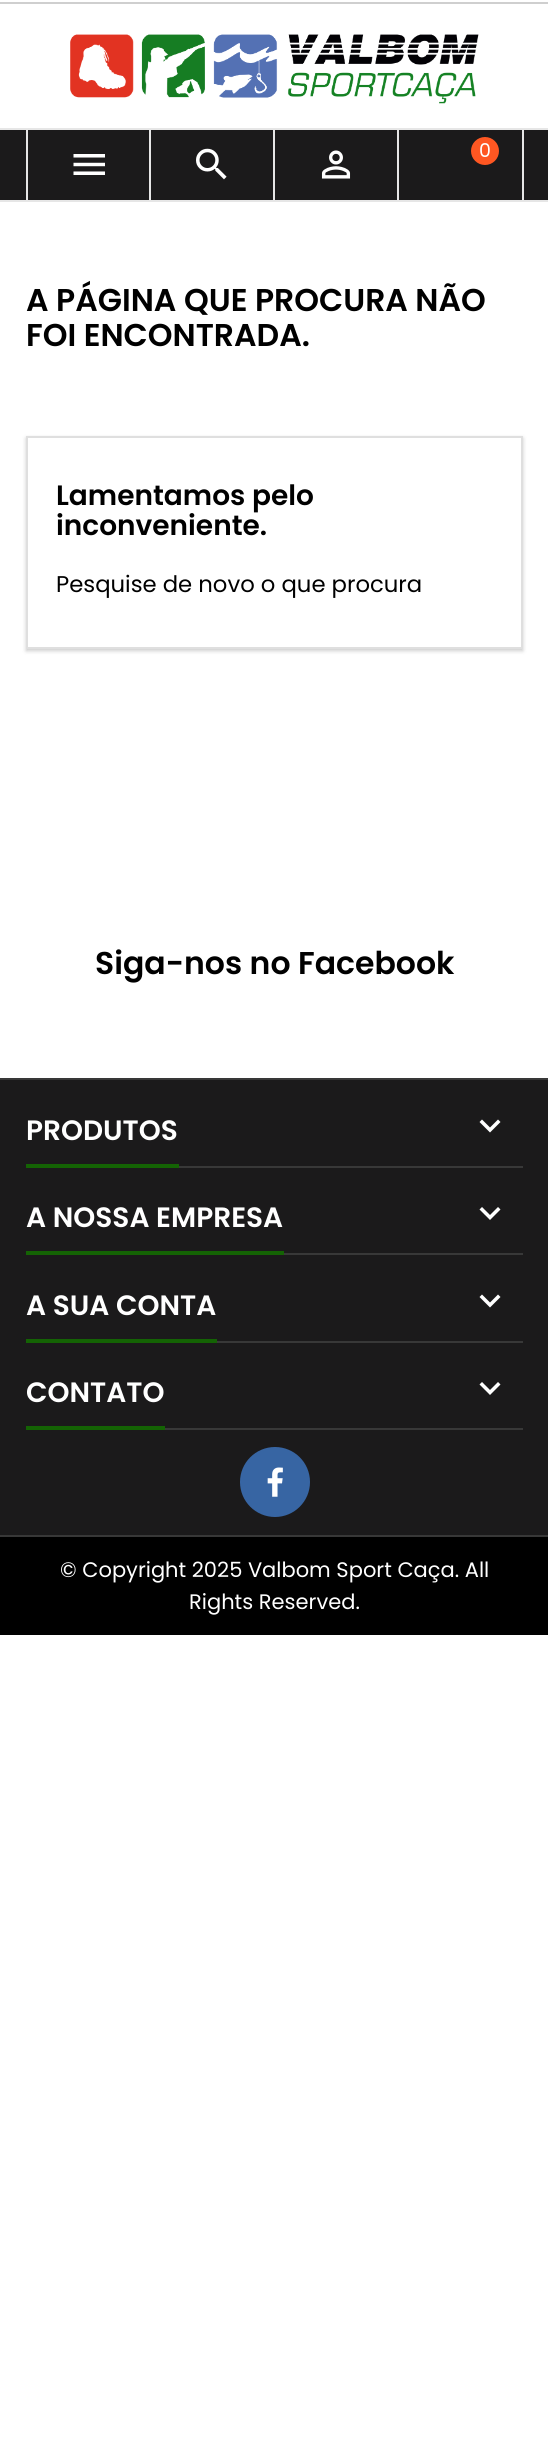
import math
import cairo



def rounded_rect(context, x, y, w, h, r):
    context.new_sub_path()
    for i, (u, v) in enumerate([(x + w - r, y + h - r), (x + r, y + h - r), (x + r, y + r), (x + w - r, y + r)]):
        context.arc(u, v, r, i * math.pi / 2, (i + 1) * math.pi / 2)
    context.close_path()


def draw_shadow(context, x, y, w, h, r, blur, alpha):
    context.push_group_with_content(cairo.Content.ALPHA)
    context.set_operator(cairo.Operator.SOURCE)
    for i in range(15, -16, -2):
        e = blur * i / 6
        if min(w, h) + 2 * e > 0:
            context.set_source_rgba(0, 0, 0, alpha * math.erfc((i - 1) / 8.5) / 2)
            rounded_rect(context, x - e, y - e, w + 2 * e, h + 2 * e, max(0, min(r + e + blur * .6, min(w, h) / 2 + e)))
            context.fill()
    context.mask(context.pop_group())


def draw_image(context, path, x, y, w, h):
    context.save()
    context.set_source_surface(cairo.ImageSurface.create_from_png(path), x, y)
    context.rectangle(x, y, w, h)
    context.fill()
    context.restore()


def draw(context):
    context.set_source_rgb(1, 1, 1)
    context.paint()
    context.set_source_rgb(207 / 255, 207 / 255, 207 / 255)
    context.rectangle(0, 2, 548, 2)
    context.fill()
    draw_image(context, "images/1.png", 70, 34, 409, 70)
    context.set_source_rgb(27 / 255, 26 / 255, 27 / 255)
    context.rectangle(0, 130, 548, 70)
    context.fill()
    context.set_source_rgb(230 / 255, 230 / 255, 230 / 255)
    context.rectangle(0, 128, 548, 2)
    context.fill()
    context.rectangle(0, 200, 548, 2)
    context.fill()
    context.rectangle(149, 130, 2, 70)
    context.fill()
    context.rectangle(26, 130, 2, 70)
    context.fill()
    draw_image(context, "images/2.png", 73, 154, 32, 21)
    context.rectangle(273, 130, 2, 70)
    context.fill()
    draw_image(context, "images/3.png", 196, 148, 31, 32)
    context.rectangle(397, 130, 2, 70)
    context.fill()
    draw_image(context, "images/4.png", 321, 150, 30, 29)
    context.rectangle(522, 130, 2, 70)
    context.fill()
    context.set_source_rgb(1, 87 / 255, 34 / 255)
    context.arc(485, 151, 14, 0, 2 * math.pi)
    context.fill()
    context.set_source_rgb(0, 0, 0)
    draw_shadow(context, 26, 438, 497, 213, 0, 2, 0.2)
    context.set_source_rgb(1, 1, 1)
    context.rectangle(27, 437, 495, 211)
    context.fill_preserve()
    context.set_source_rgb(223 / 255, 223 / 255, 223 / 255)
    context.stroke()
    context.set_source_rgb(27 / 255, 26 / 255, 27 / 255)
    context.rectangle(0, 1080, 548, 455)
    context.fill()
    context.set_source_rgb(56 / 255, 56 / 255, 56 / 255)
    context.rectangle(0, 1078, 548, 2)
    context.fill()
    context.rectangle(179, 1166, 344, 2)
    context.fill()
    context.set_source_rgb(20 / 255, 99 / 255, 4 / 255)
    context.rectangle(26, 1164, 153, 4)
    context.fill()
    context.set_source_rgb(1, 1, 1)
    context.new_path()
    context.move_to(482, 1119.5)
    context.line_to(490, 1127.5)
    context.line_to(498, 1119.5)
    context.line_to(500.5, 1122)
    context.line_to(490, 1132.5)
    context.line_to(479.5, 1122)
    context.close_path()
    context.fill()
    context.set_source_rgb(56 / 255, 56 / 255, 56 / 255)
    context.rectangle(284, 1253, 239, 2)
    context.fill()
    context.set_source_rgb(20 / 255, 99 / 255, 4 / 255)
    context.rectangle(26, 1251, 258, 4)
    context.fill()
    context.set_source_rgb(1, 1, 1)
    context.new_path()
    context.move_to(482, 1207)
    context.line_to(490, 1215)
    context.line_to(498, 1207)
    context.line_to(500.5, 1209.5)
    context.line_to(490, 1220)
    context.line_to(479.5, 1209.5)
    context.close_path()
    context.fill()
    context.set_source_rgb(56 / 255, 56 / 255, 56 / 255)
    context.rectangle(217, 1341, 306, 2)
    context.fill()
    context.set_source_rgb(20 / 255, 99 / 255, 4 / 255)
    context.rectangle(26, 1339, 191, 4)
    context.fill()
    context.set_source_rgb(1, 1, 1)
    context.new_path()
    context.move_to(482, 1294.5)
    context.line_to(490, 1302.5)
    context.line_to(498, 1294.5)
    context.line_to(500.5, 1297)
    context.line_to(490, 1307.5)
    context.line_to(479.5, 1297)
    context.close_path()
    context.fill()
    context.set_source_rgb(56 / 255, 56 / 255, 56 / 255)
    context.rectangle(165, 1428, 358, 2)
    context.fill()
    context.set_source_rgb(20 / 255, 99 / 255, 4 / 255)
    context.rectangle(26, 1426, 139, 4)
    context.fill()
    context.set_source_rgb(1, 1, 1)
    context.new_path()
    context.move_to(482, 1382)
    context.line_to(490, 1390)
    context.line_to(498, 1382)
    context.line_to(500.5, 1384.5)
    context.line_to(490, 1395)
    context.line_to(479.5, 1384.5)
    context.close_path()
    context.fill()
    context.set_source_rgb(55 / 255, 101 / 255, 163 / 255)
    context.arc(275, 1482, 35, 0, 2 * math.pi)
    context.fill()
    draw_image(context, "images/5.png", 267, 1467, 16, 30)
    context.set_source_rgb(0, 0, 0)
    context.rectangle(0, 1537, 548, 98)
    context.fill()
    context.set_source_rgb(56 / 255, 56 / 255, 56 / 255)
    context.rectangle(0, 1535, 548, 2)
    context.fill()
    context.select_font_face("Poppins")
    context.set_font_size(19)
    context.set_source_rgb(1, 1, 1)
    context.move_to(479, 157)
    context.show_text("0")
    context.select_font_face("Poppins SemiBold")
    context.set_font_size(31.5)
    context.set_source_rgb(0, 0, 0)
    context.move_to(26, 311)
    context.show_text("A PÁGINA QUE PROCURA NÃO")
    context.move_to(26, 346)
    context.show_text("FOI ENCONTRADA.")
    context.set_font_size(28)
    context.move_to(56, 505)
    context.show_text("Lamentamos pelo")
    context.move_to(56, 535)
    context.show_text("inconveniente.")
    context.select_font_face("Poppins")
    context.set_font_size(22.75)
    context.move_to(56, 592)
    context.show_text("Pesquise de novo o que procura")
    context.select_font_face("Poppins SemiBold")
    context.set_font_size(31.5)
    context.move_to(95, 974)
    context.show_text("Siga-nos no Facebook")
    context.set_font_size(28)
    context.set_source_rgb(1, 1, 1)
    context.move_to(26, 1140)
    context.show_text("PRODUTOS")
    context.move_to(26, 1227)
    context.show_text("A NOSSA EMPRESA")
    context.move_to(26, 1315)
    context.show_text("A SUA CONTA")
    context.move_to(26, 1402)
    context.show_text("CONTATO")
    context.select_font_face("Poppins")
    context.set_font_size(21)
    context.move_to(60, 1577)
    context.show_text("© Copyright 2025 Valbom Sport Caça. All")
    context.move_to(189, 1609)
    context.show_text("Rights Reserved.")


surface = cairo.ImageSurface(cairo.Format.RGB24, 548, 2449)
context = cairo.Context(surface)
options = cairo.FontOptions()
options.set_hint_metrics(cairo.HintMetrics.OFF)
options.set_hint_style(cairo.HintStyle.NONE)
context.set_font_options(options)
context.set_miter_limit(4)
draw(context)
surface.write_to_png("out.png")
